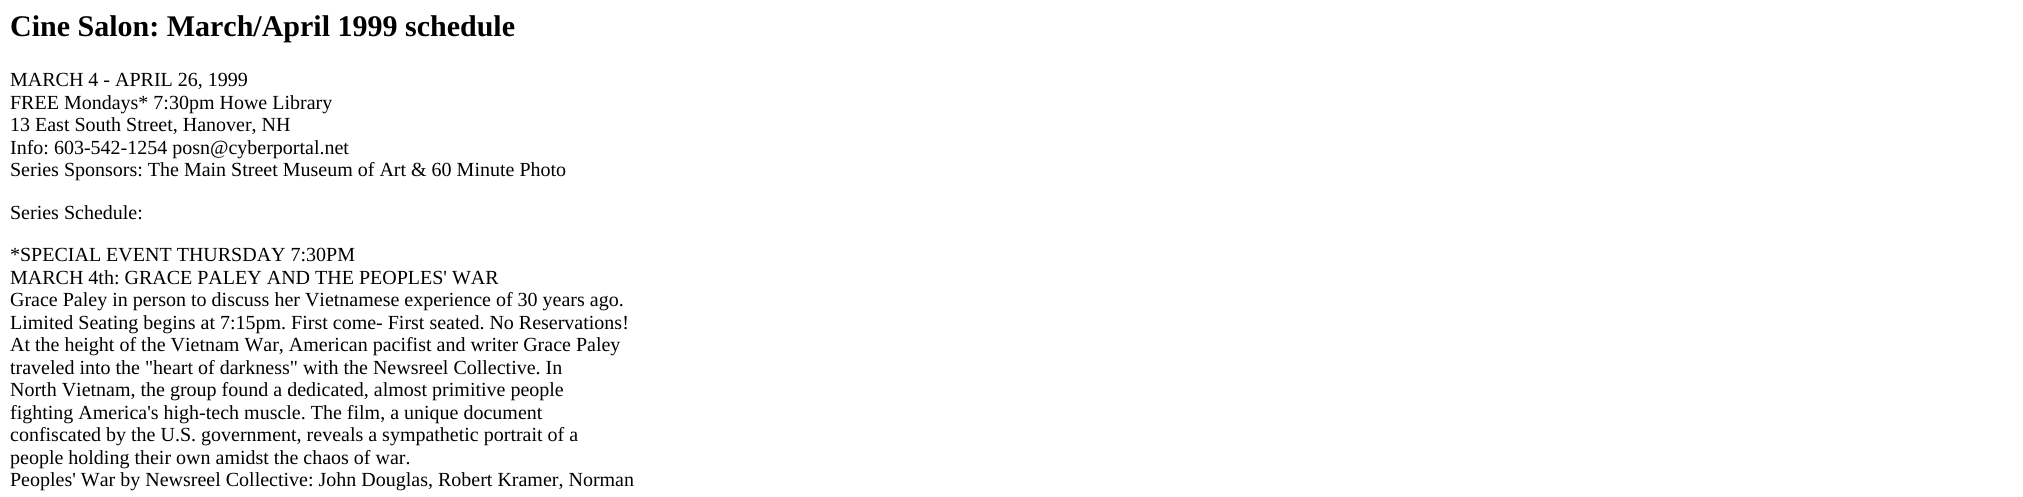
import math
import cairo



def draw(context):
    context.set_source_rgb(1, 1, 1)
    context.paint()
    context.select_font_face("Liberation Serif", cairo.FontSlant.NORMAL, cairo.FontWeight.BOLD)
    context.set_font_size(30)
    context.set_source_rgb(0, 0, 0)
    context.move_to(10, 36)
    context.show_text("Cine Salon: March/April 1999 schedule")
    context.select_font_face("Liberation Serif")
    context.set_font_size(20)
    context.move_to(10, 86)
    context.show_text("MARCH 4 - APRIL 26, 1999")
    context.move_to(10, 109)
    context.show_text("FREE Mondays* 7:30pm Howe Library")
    context.move_to(10, 131)
    context.show_text("13 East South Street, Hanover, NH")
    context.move_to(10, 154)
    context.show_text("Info: 603-542-1254 posn@cyberportal.net")
    context.move_to(10, 176)
    context.show_text("Series Sponsors: The Main Street Museum of Art & 60 Minute Photo")
    context.move_to(10, 219)
    context.show_text("Series Schedule:")
    context.move_to(10, 261)
    context.show_text("*SPECIAL EVENT THURSDAY 7:30PM")
    context.move_to(10, 284)
    context.show_text("MARCH 4th: GRACE PALEY AND THE PEOPLES' WAR")
    context.move_to(10, 306)
    context.show_text("Grace Paley in person to discuss her Vietnamese experience of 30 years ago.")
    context.move_to(10, 329)
    context.show_text("Limited Seating begins at 7:15pm. First come- First seated. No Reservations!")
    context.move_to(10, 351)
    context.show_text("At the height of the Vietnam War, American pacifist and writer Grace Paley")
    context.move_to(10, 374)
    context.show_text("traveled into the \"heart of darkness\" with the Newsreel Collective. In")
    context.move_to(10, 396)
    context.show_text("North Vietnam, the group found a dedicated, almost primitive people")
    context.move_to(10, 419)
    context.show_text("fighting America's high-tech muscle. The film, a unique document")
    context.move_to(10, 441)
    context.show_text("confiscated by the U.S. government, reveals a sympathetic portrait of a")
    context.move_to(10, 464)
    context.show_text("people holding their own amidst the chaos of war.")
    context.move_to(10, 486)
    context.show_text("Peoples' War by Newsreel Collective: John Douglas, Robert Kramer, Norman")


surface = cairo.ImageSurface(cairo.Format.RGB24, 2023, 497)
context = cairo.Context(surface)
options = cairo.FontOptions()
options.set_hint_metrics(cairo.HintMetrics.OFF)
options.set_hint_style(cairo.HintStyle.NONE)
context.set_font_options(options)
context.set_miter_limit(4)
draw(context)
surface.write_to_png("out.png")
